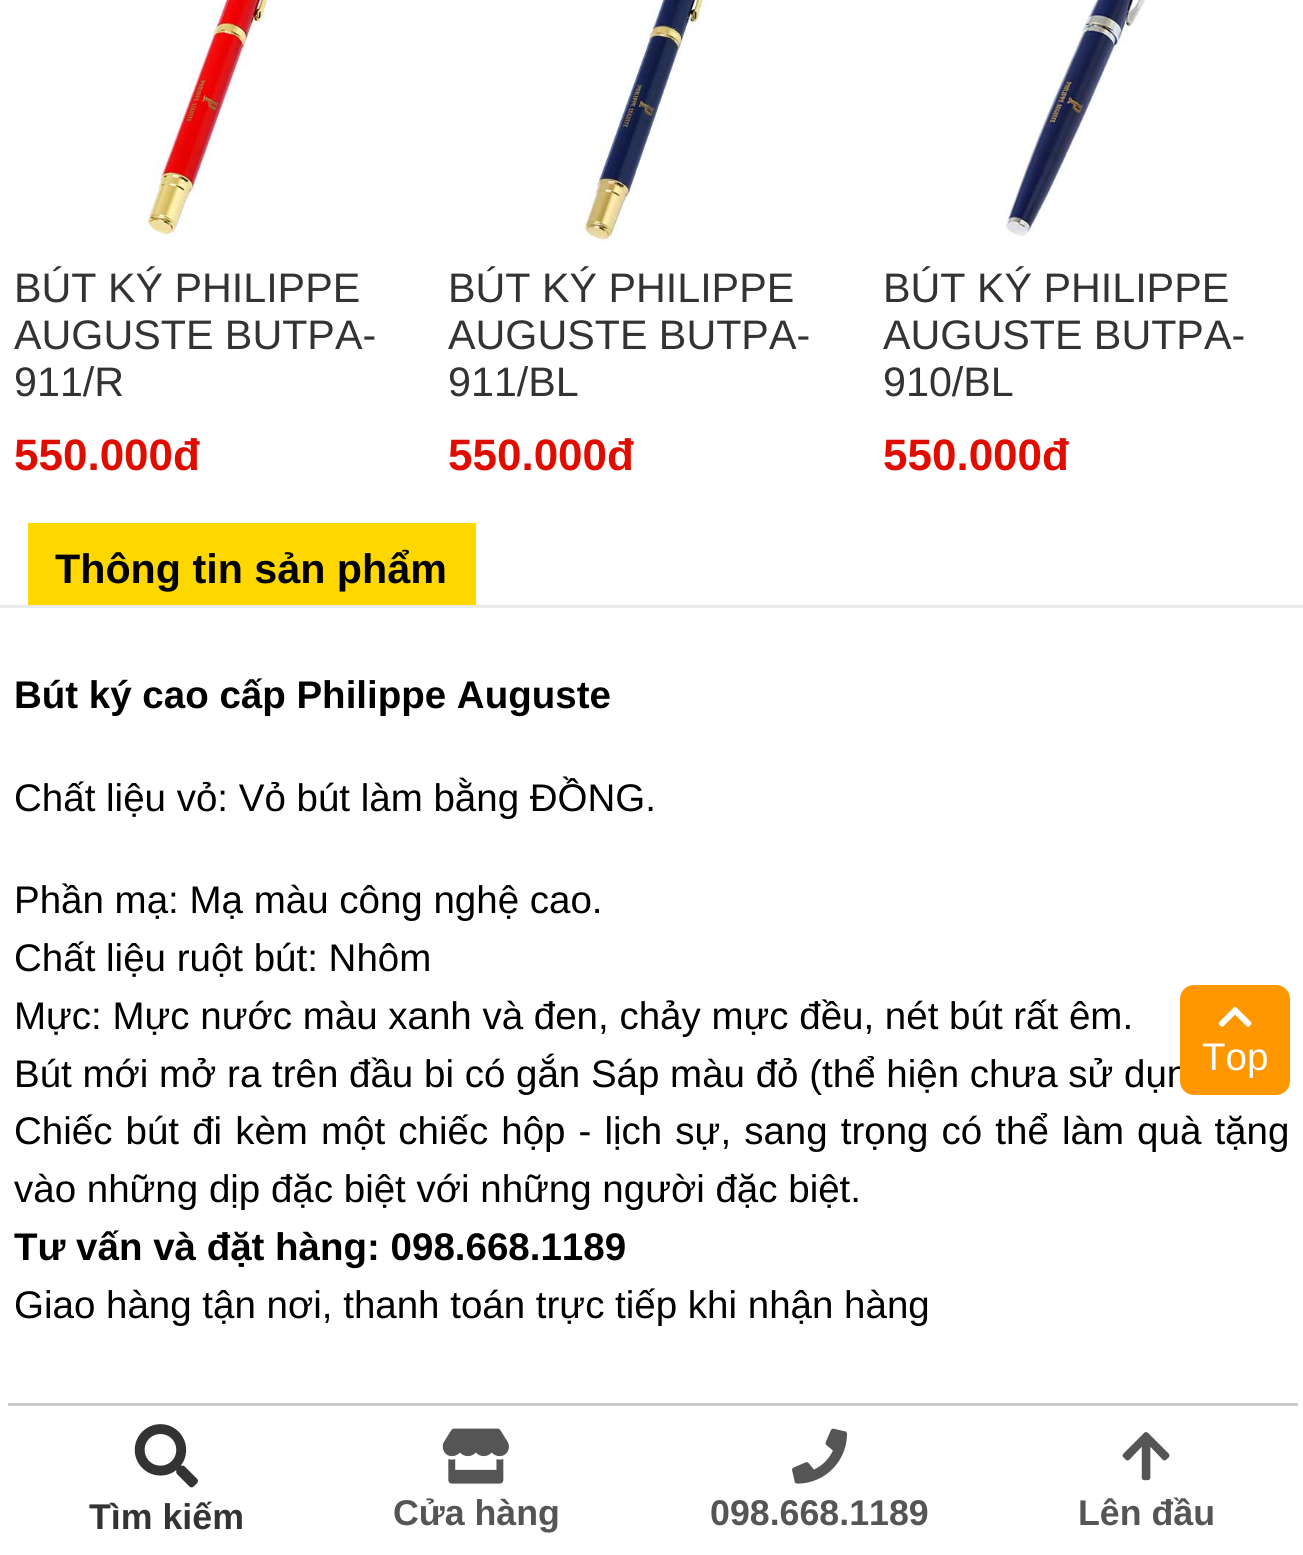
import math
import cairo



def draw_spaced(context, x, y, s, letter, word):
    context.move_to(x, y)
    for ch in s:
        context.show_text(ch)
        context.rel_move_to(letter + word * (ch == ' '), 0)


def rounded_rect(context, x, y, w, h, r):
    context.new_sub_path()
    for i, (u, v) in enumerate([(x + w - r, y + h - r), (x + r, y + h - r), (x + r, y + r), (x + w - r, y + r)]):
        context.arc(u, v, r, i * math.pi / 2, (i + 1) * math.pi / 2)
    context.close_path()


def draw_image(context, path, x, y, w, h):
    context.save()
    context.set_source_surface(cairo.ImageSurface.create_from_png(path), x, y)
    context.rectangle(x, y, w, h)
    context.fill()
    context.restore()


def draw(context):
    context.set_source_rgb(1, 1, 1)
    context.paint()
    draw_image(context, "images/1.png", 144, 0, 127, 239)
    draw_image(context, "images/2.png", 577, 0, 129, 242)
    draw_image(context, "images/3.png", 1000, 0, 145, 236)
    context.set_source_rgb(234 / 255, 234 / 255, 234 / 255)
    context.rectangle(0, 605, 1303, 3)
    context.fill()
    context.set_source_rgb(254 / 255, 215 / 255, 0)
    context.rectangle(28, 523, 448, 82)
    context.fill()
    context.set_source_rgb(204 / 255, 204 / 255, 204 / 255)
    context.rectangle(8, 1403, 1290, 3)
    context.fill()
    draw_image(context, "images/5.png", 134, 1424, 64, 64)
    draw_image(context, "images/6.png", 442, 1428, 67, 56)
    draw_image(context, "images/7.png", 792, 1428, 55, 56)
    draw_image(context, "images/8.png", 1122, 1432, 48, 49)
    context.select_font_face("Liberation Sans")
    context.set_font_size(41.25)
    context.set_source_rgb(51 / 255, 51 / 255, 51 / 255)
    context.move_to(14, 302)
    context.show_text("BÚT KÝ PHILIPPE")
    context.move_to(14, 349)
    context.show_text("AUGUSTE BUTPA-")
    context.move_to(14, 396)
    context.show_text("911/R")
    context.select_font_face("Liberation Sans", cairo.FontSlant.NORMAL, cairo.FontWeight.BOLD)
    context.set_font_size(44)
    context.set_source_rgb(225 / 255, 12 / 255, 0)
    context.move_to(14, 470)
    context.show_text("550.000đ")
    context.select_font_face("Liberation Sans")
    context.set_font_size(41.25)
    context.set_source_rgb(51 / 255, 51 / 255, 51 / 255)
    context.move_to(448, 302)
    context.show_text("BÚT KÝ PHILIPPE")
    context.move_to(448, 349)
    context.show_text("AUGUSTE BUTPA-")
    context.move_to(448, 396)
    context.show_text("911/BL")
    context.select_font_face("Liberation Sans", cairo.FontSlant.NORMAL, cairo.FontWeight.BOLD)
    context.set_font_size(44)
    context.set_source_rgb(225 / 255, 12 / 255, 0)
    context.move_to(448, 470)
    context.show_text("550.000đ")
    context.select_font_face("Liberation Sans")
    context.set_font_size(41.25)
    context.set_source_rgb(51 / 255, 51 / 255, 51 / 255)
    context.move_to(883, 302)
    context.show_text("BÚT KÝ PHILIPPE")
    context.move_to(883, 349)
    context.show_text("AUGUSTE BUTPA-")
    context.move_to(883, 396)
    context.show_text("910/BL")
    context.select_font_face("Liberation Sans", cairo.FontSlant.NORMAL, cairo.FontWeight.BOLD)
    context.set_font_size(44)
    context.set_source_rgb(225 / 255, 12 / 255, 0)
    context.move_to(883, 470)
    context.show_text("550.000đ")
    context.set_font_size(41.25)
    context.set_source_rgb(0, 0, 0)
    context.move_to(55, 583)
    context.show_text("Thông tin sản phẩm")
    context.set_font_size(38.5)
    context.move_to(14, 708)
    context.show_text("Bút ký cao cấp Philippe Auguste")
    context.select_font_face("Liberation Sans")
    context.move_to(14, 811)
    context.show_text("Chất liệu vỏ: Vỏ bút làm bằng ĐỒNG.")
    context.move_to(14, 913)
    context.show_text("Phần mạ: Mạ màu công nghệ cao.")
    context.move_to(14, 971)
    context.show_text("Chất liệu ruột bút: Nhôm")
    context.move_to(14, 1029)
    context.show_text("Mực: Mực nước màu xanh và đen, chảy mực đều, nét bút rất êm.")
    context.move_to(14, 1087)
    context.show_text("Bút mới mở ra trên đầu bi có gắn Sáp màu đỏ (thể hiện chưa sử dụn")
    draw_spaced(context, 14, 1144, "Chiếc bút đi kèm một chiếc hộp - lịch sự, sang trọng có thể làm quà tặng", 0, 2.4)
    context.move_to(14, 1202)
    context.show_text("vào những dịp đặc biệt với những người đặc biệt.")
    context.select_font_face("Liberation Sans", cairo.FontSlant.NORMAL, cairo.FontWeight.BOLD)
    context.move_to(14, 1260)
    context.show_text("Tư vấn và đặt hàng: 098.668.1189")
    context.select_font_face("Liberation Sans")
    context.move_to(14, 1318)
    context.show_text("Giao hàng tận nơi, thanh toán trực tiếp khi nhận hàng")
    context.set_source_rgb(1, 152 / 255, 0)
    rounded_rect(context, 1180, 985, 110, 110, 14)
    context.fill()
    draw_image(context, "images/4.png", 1218, 1006, 34, 21)
    context.set_source_rgb(1, 1, 1)
    context.move_to(1202, 1070)
    context.show_text("Top")
    context.select_font_face("Liberation Sans", cairo.FontSlant.NORMAL, cairo.FontWeight.BOLD)
    context.set_font_size(35.75)
    context.set_source_rgb(51 / 255, 51 / 255, 51 / 255)
    context.move_to(89, 1529)
    context.show_text("Tìm kiếm")
    context.set_source_rgb(85 / 255, 85 / 255, 85 / 255)
    context.move_to(393, 1525)
    context.show_text("Cửa hàng")
    context.move_to(710, 1525)
    context.show_text("098.668.1189")
    context.move_to(1078, 1525)
    context.show_text("Lên đầu")


surface = cairo.ImageSurface(cairo.Format.RGB24, 1303, 1555)
context = cairo.Context(surface)
options = cairo.FontOptions()
options.set_hint_metrics(cairo.HintMetrics.OFF)
options.set_hint_style(cairo.HintStyle.NONE)
context.set_font_options(options)
context.set_miter_limit(4)
draw(context)
surface.write_to_png("out.png")
